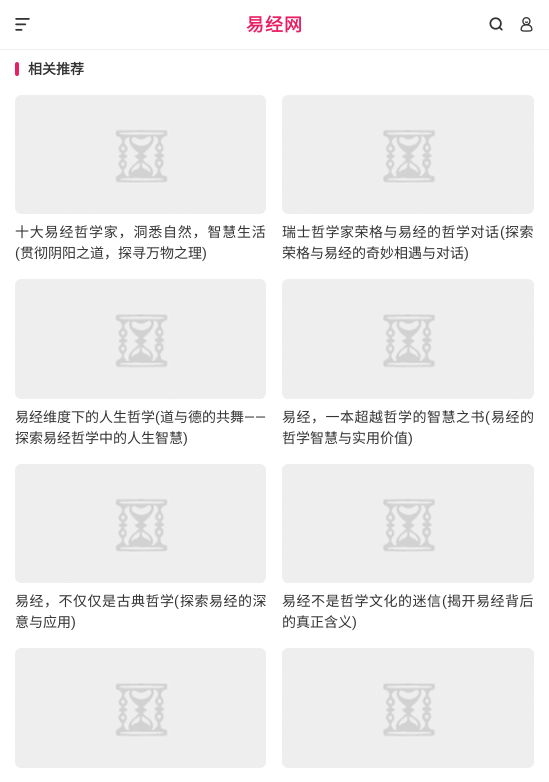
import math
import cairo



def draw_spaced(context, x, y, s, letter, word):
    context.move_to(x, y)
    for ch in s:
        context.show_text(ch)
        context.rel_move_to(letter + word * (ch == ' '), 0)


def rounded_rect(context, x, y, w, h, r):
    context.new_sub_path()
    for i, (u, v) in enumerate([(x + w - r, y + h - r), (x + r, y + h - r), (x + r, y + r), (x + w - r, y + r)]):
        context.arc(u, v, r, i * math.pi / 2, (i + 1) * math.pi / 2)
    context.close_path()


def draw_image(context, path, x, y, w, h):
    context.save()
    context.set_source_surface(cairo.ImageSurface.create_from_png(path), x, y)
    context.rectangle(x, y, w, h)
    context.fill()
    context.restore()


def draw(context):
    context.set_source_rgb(1, 1, 1)
    context.paint()
    draw_image(context, "images/1.png", 15, 18, 15, 13)
    draw_image(context, "images/2.png", 489, 17, 14, 14)
    draw_image(context, "images/3.png", 520, 17, 13, 15)
    context.set_source_rgb(238 / 255, 238 / 255, 238 / 255)
    rounded_rect(context, 0, 49, 549, 1, 0.5)
    context.fill()
    context.set_source_rgb(233 / 255, 30 / 255, 99 / 255)
    rounded_rect(context, 15, 62, 4, 14, 2)
    context.fill()
    draw_image(context, "images/4.png", 15, 95, 251, 119)
    draw_image(context, "images/5.png", 282, 95, 252, 119)
    draw_image(context, "images/6.png", 15, 279, 251, 120)
    draw_image(context, "images/7.png", 282, 279, 252, 120)
    draw_image(context, "images/4.png", 15, 464, 251, 119)
    draw_image(context, "images/5.png", 282, 464, 252, 119)
    draw_image(context, "images/6.png", 15, 648, 251, 120)
    draw_image(context, "images/7.png", 282, 648, 252, 120)
    context.select_font_face("Noto Sans CJK SC", cairo.FontSlant.NORMAL, cairo.FontWeight.BOLD)
    context.set_font_size(18)
    draw_spaced(context, 246, 31, "易经网", 1, 0)
    context.set_font_size(14)
    context.set_source_rgb(51 / 255, 51 / 255, 51 / 255)
    context.move_to(28, 74)
    context.show_text("相关推荐")
    context.select_font_face("Noto Sans CJK SC")
    draw_spaced(context, 15, 237, "十大易经哲学家，洞悉自然，智慧生活", 0.8, 0)
    context.select_font_face("Roboto")
    context.move_to(15, 258)
    context.show_text("(")
    context.select_font_face("Noto Sans CJK SC")
    context.move_to(20, 258)
    context.show_text("贯彻阴阳之道，探寻万物之理")
    context.select_font_face("Roboto")
    context.move_to(202, 258)
    context.show_text(")")
    context.select_font_face("Noto Sans CJK SC")
    draw_spaced(context, 282, 237, "瑞士哲学家荣格与易经的哲学对话", 0.5, 0)
    context.select_font_face("Roboto")
    draw_spaced(context, 500, 237, "(", 0.5, 0)
    context.select_font_face("Noto Sans CJK SC")
    draw_spaced(context, 505, 237, "探索", 0.5, 0)
    context.move_to(282, 258)
    context.show_text("荣格与易经的奇妙相遇与对话")
    context.select_font_face("Roboto")
    context.move_to(464, 258)
    context.show_text(")")
    context.select_font_face("Noto Sans CJK SC")
    context.move_to(15, 422)
    context.show_text("易经维度下的人生哲学")
    context.select_font_face("Roboto")
    context.move_to(155, 422)
    context.show_text("(")
    context.select_font_face("Noto Sans CJK SC")
    context.move_to(160, 422)
    context.show_text("道与德的共舞")
    context.select_font_face("Roboto")
    context.move_to(244, 422)
    context.show_text("——")
    context.select_font_face("Noto Sans CJK SC")
    context.move_to(15, 443)
    context.show_text("探索易经哲学中的人生智慧")
    context.select_font_face("Roboto")
    context.move_to(183, 443)
    context.show_text(")")
    context.select_font_face("Noto Sans CJK SC")
    draw_spaced(context, 282, 422, "易经，一本超越哲学的智慧之书", 0.5, 0)
    context.select_font_face("Roboto")
    draw_spaced(context, 485, 422, "(", 0.5, 0)
    context.select_font_face("Noto Sans CJK SC")
    draw_spaced(context, 491, 422, "易经的", 0.5, 0)
    context.move_to(282, 443)
    context.show_text("哲学智慧与实用价值")
    context.select_font_face("Roboto")
    context.move_to(408, 443)
    context.show_text(")")
    context.select_font_face("Noto Sans CJK SC")
    draw_spaced(context, 15, 606, "易经，不仅仅是古典哲学", 0.5, 0)
    context.select_font_face("Roboto")
    draw_spaced(context, 174, 606, "(", 0.5, 0)
    context.select_font_face("Noto Sans CJK SC")
    draw_spaced(context, 180, 606, "探索易经的深", 0.5, 0)
    context.move_to(15, 627)
    context.show_text("意与应用")
    context.select_font_face("Roboto")
    context.move_to(71, 627)
    context.show_text(")")
    context.select_font_face("Noto Sans CJK SC")
    draw_spaced(context, 282, 606, "易经不是哲学文化的迷信", 0.5, 0)
    context.select_font_face("Roboto")
    draw_spaced(context, 442, 606, "(", 0.5, 0)
    context.select_font_face("Noto Sans CJK SC")
    draw_spaced(context, 447, 606, "揭开易经背后", 0.5, 0)
    context.move_to(282, 627)
    context.show_text("的真正含义")
    context.select_font_face("Roboto")
    context.move_to(352, 627)
    context.show_text(")")


surface = cairo.ImageSurface(cairo.Format.RGB24, 549, 782)
context = cairo.Context(surface)
options = cairo.FontOptions()
options.set_hint_metrics(cairo.HintMetrics.OFF)
options.set_hint_style(cairo.HintStyle.NONE)
context.set_font_options(options)
context.set_miter_limit(4)
draw(context)
surface.write_to_png("out.png")
